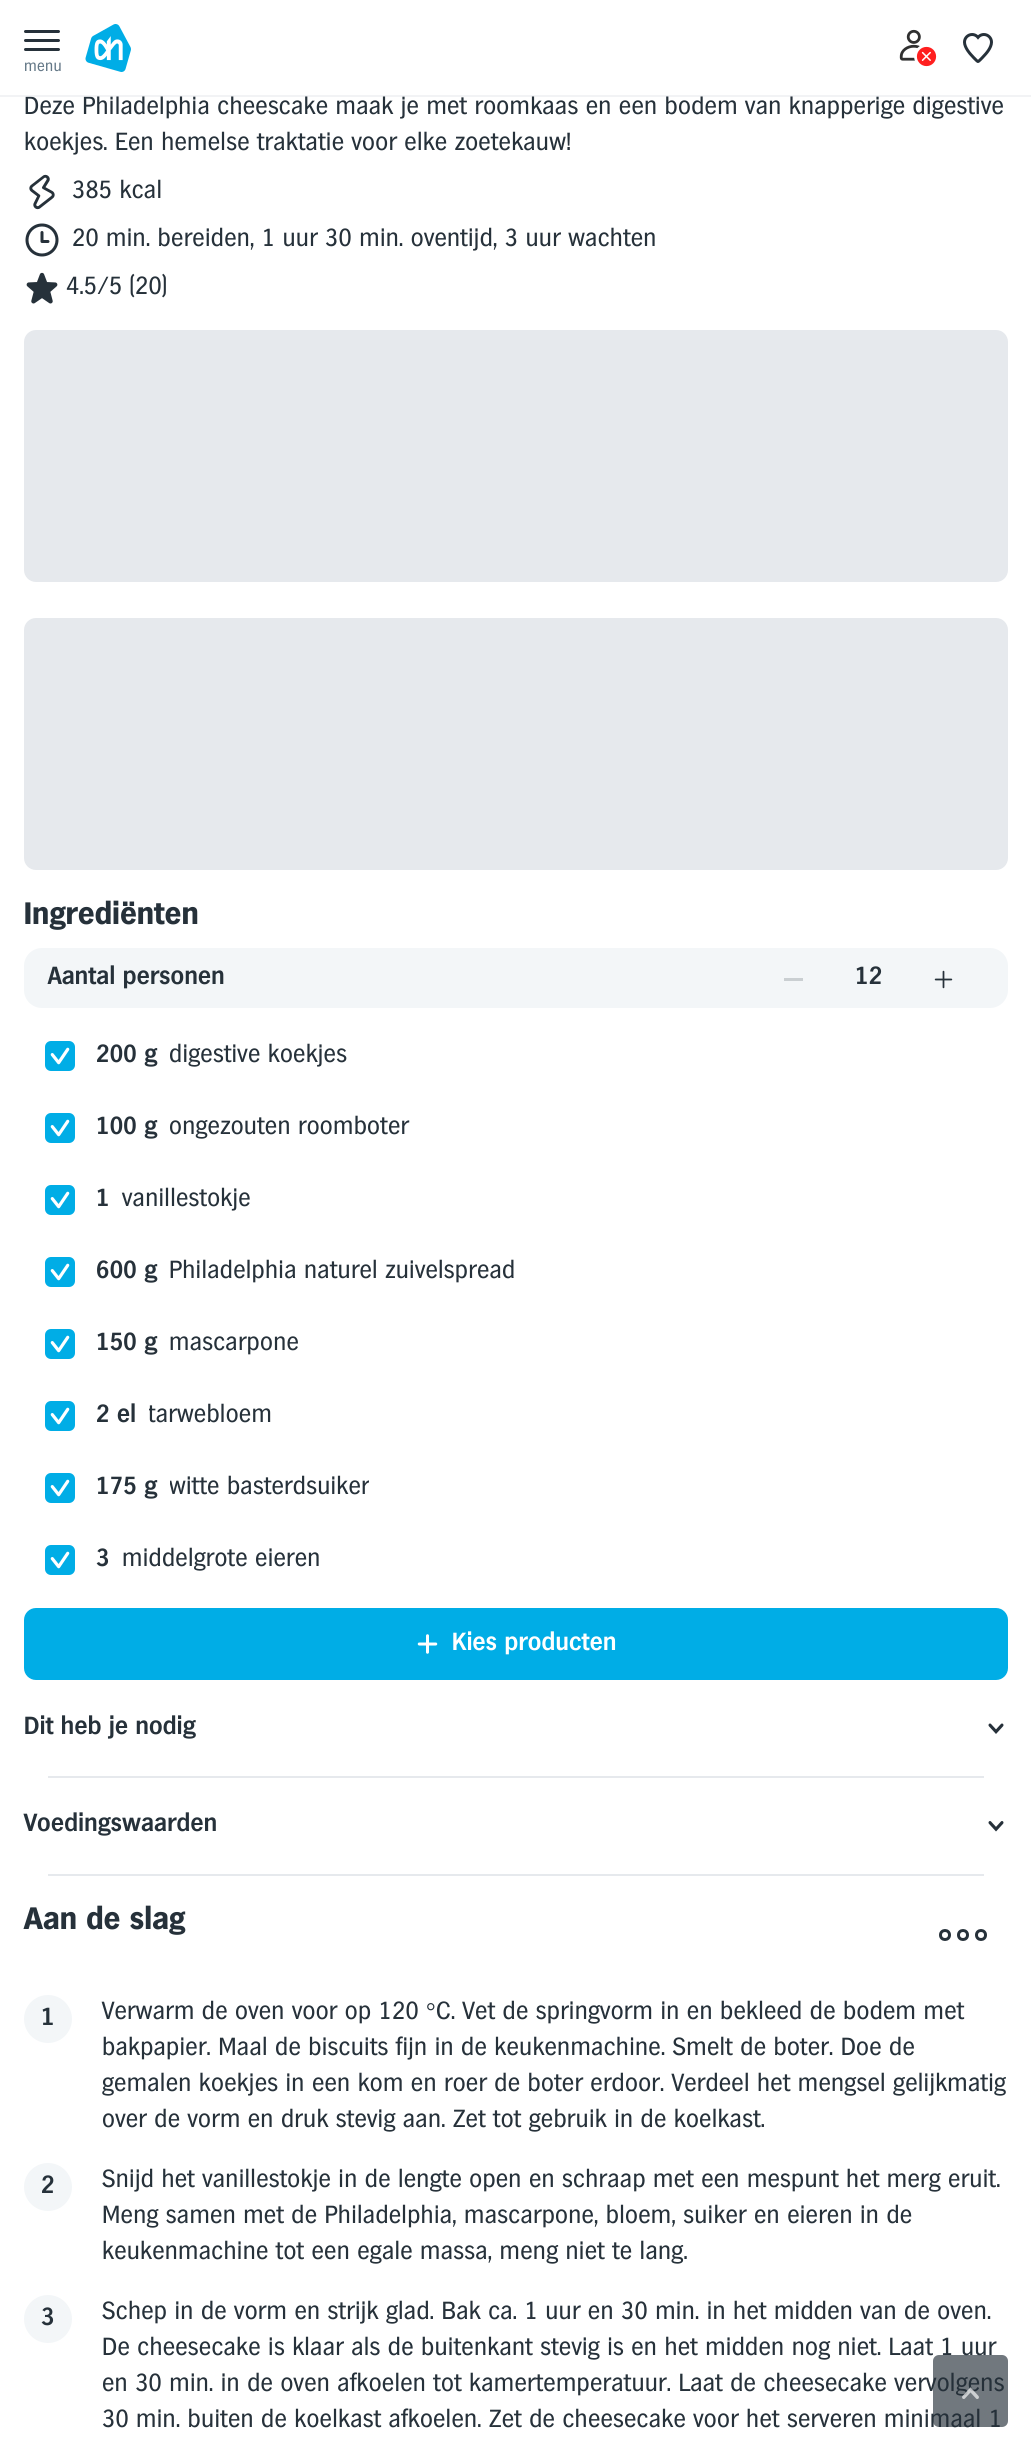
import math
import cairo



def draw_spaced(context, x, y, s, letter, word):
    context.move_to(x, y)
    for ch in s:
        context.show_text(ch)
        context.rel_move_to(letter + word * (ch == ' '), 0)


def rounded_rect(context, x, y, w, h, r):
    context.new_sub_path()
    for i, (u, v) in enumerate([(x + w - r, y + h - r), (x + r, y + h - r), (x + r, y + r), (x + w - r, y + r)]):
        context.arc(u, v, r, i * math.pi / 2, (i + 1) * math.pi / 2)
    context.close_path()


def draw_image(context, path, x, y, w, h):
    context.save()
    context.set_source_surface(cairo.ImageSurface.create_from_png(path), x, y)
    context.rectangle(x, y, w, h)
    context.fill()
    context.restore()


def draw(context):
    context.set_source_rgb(1, 1, 1)
    context.paint()
    context.set_source_rgb(38 / 255, 49 / 255, 58 / 255)
    rounded_rect(context, 24, 30, 36, 3, 1.5)
    context.fill()
    rounded_rect(context, 24, 39, 36, 3, 1.5)
    context.fill()
    rounded_rect(context, 24, 48, 36, 3, 1.5)
    context.fill()
    draw_image(context, "images/1.png", 85, 24, 46, 48)
    draw_image(context, "images/2.png", 899, 29, 38, 38)
    draw_image(context, "images/3.png", 963, 33, 30, 30)
    draw_image(context, "images/4.png", 29, 174, 26, 36)
    draw_image(context, "images/5.png", 25, 223, 34, 34)
    draw_image(context, "images/6.png", 26, 272, 32, 32)
    context.set_source_rgb(230 / 255, 233 / 255, 237 / 255)
    rounded_rect(context, 24, 330, 984, 252, 12)
    context.fill()
    rounded_rect(context, 24, 618, 984, 252, 12)
    context.fill()
    context.set_source_rgb(243 / 255, 246 / 255, 248 / 255)
    rounded_rect(context, 24, 948, 984, 60, 18)
    context.fill()
    context.set_source_rgb(202 / 255, 207 / 255, 210 / 255)
    context.rectangle(784, 978, 19, 3)
    context.fill()
    draw_image(context, "images/7.png", 934, 970, 19, 19)
    context.set_source_rgb(0, 173 / 255, 230 / 255)
    rounded_rect(context, 45, 1041, 30, 30, 6)
    context.fill()
    draw_image(context, "images/8.png", 50, 1047, 20, 18)
    rounded_rect(context, 45, 1113, 30, 30, 6)
    context.fill()
    draw_image(context, "images/8.png", 50, 1119, 20, 18)
    rounded_rect(context, 45, 1185, 30, 30, 6)
    context.fill()
    draw_image(context, "images/8.png", 50, 1191, 20, 18)
    rounded_rect(context, 45, 1257, 30, 30, 6)
    context.fill()
    draw_image(context, "images/8.png", 50, 1263, 20, 18)
    rounded_rect(context, 45, 1329, 30, 30, 6)
    context.fill()
    draw_image(context, "images/8.png", 50, 1335, 20, 18)
    rounded_rect(context, 45, 1401, 30, 30, 6)
    context.fill()
    draw_image(context, "images/8.png", 50, 1407, 20, 18)
    rounded_rect(context, 45, 1473, 30, 30, 6)
    context.fill()
    draw_image(context, "images/8.png", 50, 1479, 20, 18)
    rounded_rect(context, 45, 1545, 30, 30, 6)
    context.fill()
    draw_image(context, "images/8.png", 50, 1551, 20, 18)
    rounded_rect(context, 24, 1608, 984, 72, 12)
    context.fill()
    draw_image(context, "images/9.png", 417, 1634, 21, 20)
    draw_image(context, "images/10.png", 988, 1723, 16, 11)
    context.set_source_rgb(230 / 255, 233 / 255, 237 / 255)
    context.rectangle(48, 1776, 936, 2)
    context.fill()
    draw_image(context, "images/11.png", 988, 1821, 16, 11)
    context.rectangle(48, 1874, 936, 2)
    context.fill()
    context.arc(945, 1935, 4.5, 0, 2 * math.pi)
    context.set_source_rgb(38 / 255, 49 / 255, 58 / 255)
    context.set_line_width(3)
    context.stroke()
    context.arc(963, 1935, 4.5, 0, 2 * math.pi)
    context.stroke()
    context.arc(981, 1935, 4.5, 0, 2 * math.pi)
    context.stroke()
    context.set_source_rgb(243 / 255, 246 / 255, 248 / 255)
    context.arc(48, 2019, 24, 0, 2 * math.pi)
    context.fill()
    context.arc(48, 2187, 24, 0, 2 * math.pi)
    context.fill()
    context.arc(48, 2319, 24, 0, 2 * math.pi)
    context.fill()
    context.select_font_face("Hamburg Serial")
    context.set_font_size(15)
    context.set_source_rgb(100 / 255, 120 / 255, 135 / 255)
    draw_spaced(context, 24, 71, "menu", 0.3, 0)
    context.set_font_size(24)
    context.set_source_rgb(38 / 255, 49 / 255, 58 / 255)
    draw_spaced(context, 24, 114, "Deze Philadelphia cheescake maak je met roomkaas en een bodem van knapperige digestive", 0.3, 0)
    context.set_source_rgb(1, 1, 1)
    context.rectangle(97, 95, 826, 1)
    context.fill()
    context.set_source_rgba(230 / 255, 233 / 255, 237 / 255, 0.5)
    context.rectangle(0, 95, 1031, 2)
    context.fill()
    context.set_source_rgb(38 / 255, 49 / 255, 58 / 255)
    draw_spaced(context, 24, 150, "koekjes. Een hemelse traktatie voor elke zoetekauw!", 0.3, 0)
    draw_spaced(context, 72, 198, "385 kcal", 0.3, 0)
    draw_spaced(context, 72, 246, "20 min. bereiden, 1 uur 30 min. oventijd, 3 uur wachten", 0.3, 0)
    draw_spaced(context, 66, 294, "4.5/5", 0.3, 0)
    draw_spaced(context, 129, 294, "(20)", 0.3, 0)
    context.select_font_face("Hamburg Serial", cairo.FontSlant.NORMAL, cairo.FontWeight.BOLD)
    context.set_font_size(30)
    draw_spaced(context, 24, 924, "Ingrediënten", 0.4, 0)
    context.select_font_face("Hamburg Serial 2", cairo.FontSlant.NORMAL, cairo.FontWeight.BOLD)
    context.set_font_size(24)
    draw_spaced(context, 48, 984, "Aantal personen", 0.3, 0)
    draw_spaced(context, 855, 984, "12", 0.3, 0)
    draw_spaced(context, 96, 1062, "200 g", 0.3, 0)
    context.select_font_face("Hamburg Serial")
    draw_spaced(context, 169, 1062, "digestive koekjes", 0.3, 0)
    context.select_font_face("Hamburg Serial 2", cairo.FontSlant.NORMAL, cairo.FontWeight.BOLD)
    draw_spaced(context, 96, 1134, "100 g", 0.3, 0)
    context.select_font_face("Hamburg Serial")
    draw_spaced(context, 169, 1134, "ongezouten roomboter", 0.3, 0)
    context.select_font_face("Hamburg Serial 2", cairo.FontSlant.NORMAL, cairo.FontWeight.BOLD)
    draw_spaced(context, 96, 1206, "1", 0.3, 0)
    context.select_font_face("Hamburg Serial")
    draw_spaced(context, 122, 1206, "vanillestokje", 0.3, 0)
    context.select_font_face("Hamburg Serial 2", cairo.FontSlant.NORMAL, cairo.FontWeight.BOLD)
    draw_spaced(context, 96, 1278, "600 g", 0.3, 0)
    context.select_font_face("Hamburg Serial")
    draw_spaced(context, 169, 1278, "Philadelphia naturel zuivelspread", 0.3, 0)
    context.select_font_face("Hamburg Serial 2", cairo.FontSlant.NORMAL, cairo.FontWeight.BOLD)
    draw_spaced(context, 96, 1350, "150 g", 0.3, 0)
    context.select_font_face("Hamburg Serial")
    draw_spaced(context, 169, 1350, "mascarpone", 0.3, 0)
    context.select_font_face("Hamburg Serial 2", cairo.FontSlant.NORMAL, cairo.FontWeight.BOLD)
    draw_spaced(context, 96, 1422, "2 el", 0.3, 0)
    context.save()
    context.rectangle(149, 1398, 123, 36)
    context.clip()
    context.select_font_face("Hamburg Serial")
    draw_spaced(context, 148, 1422, "tarwebloem", 0.3, 0)
    context.restore()
    draw_spaced(context, 96, 1494, "175 g", 0.3, 0)
    context.save()
    context.rectangle(170, 1470, 199, 36)
    context.clip()
    context.select_font_face("Hamburg Serial")
    draw_spaced(context, 169, 1494, "witte basterdsuiker", 0.3, 0)
    context.restore()
    draw_spaced(context, 96, 1566, "3", 0.3, 0)
    context.select_font_face("Hamburg Serial")
    draw_spaced(context, 122, 1566, "middelgrote eieren", 0.3, 0)
    context.select_font_face("Hamburg Serial 2", cairo.FontSlant.NORMAL, cairo.FontWeight.BOLD)
    context.set_source_rgb(1, 1, 1)
    draw_spaced(context, 452, 1650, "Kies producten", 0.3, 0)
    context.set_source_rgb(38 / 255, 49 / 255, 58 / 255)
    draw_spaced(context, 24, 1734, "Dit heb je nodig", 0.3, 0)
    draw_spaced(context, 24, 1831, "Voedingswaarden", 0.3, 0)
    context.select_font_face("Hamburg Serial", cairo.FontSlant.NORMAL, cairo.FontWeight.BOLD)
    context.set_font_size(30)
    draw_spaced(context, 24, 1929, "Aan de slag", 0.4, 0)
    context.select_font_face("Hamburg Serial 2", cairo.FontSlant.NORMAL, cairo.FontWeight.BOLD)
    context.set_font_size(24)
    context.move_to(41, 2025)
    context.show_text("1")
    context.select_font_face("Hamburg Serial")
    draw_spaced(context, 102, 2019, "Verwarm de oven voor op 120", 0.3, 0)
    context.select_font_face("Liberation Serif")
    draw_spaced(context, 426, 2019, "°", 0.3, 0)
    context.select_font_face("Hamburg Serial")
    draw_spaced(context, 436, 2019, "C. Vet de springvorm in en bekleed de bodem met", 0.3, 0)
    draw_spaced(context, 102, 2055, "bakpapier. Maal de biscuits fijn in de keukenmachine. Smelt de boter. Doe de", 0.3, 0)
    draw_spaced(context, 102, 2091, "gemalen koekjes in een kom en roer de boter erdoor. Verdeel het mengsel gelijkmatig", 0.3, 0)
    draw_spaced(context, 102, 2127, "over de vorm en druk stevig aan. Zet tot gebruik in de koelkast.", 0.3, 0)
    context.select_font_face("Hamburg Serial 2", cairo.FontSlant.NORMAL, cairo.FontWeight.BOLD)
    context.move_to(41, 2193)
    context.show_text("2")
    context.select_font_face("Hamburg Serial")
    draw_spaced(context, 102, 2187, "Snijd het vanillestokje in de lengte open en schraap met een mespunt het merg eruit.", 0.3, 0)
    draw_spaced(context, 102, 2223, "Meng samen met de Philadelphia, mascarpone, bloem, suiker en eieren in de", 0.3, 0)
    draw_spaced(context, 102, 2259, "keukenmachine tot een egale massa, meng niet te lang.", 0.3, 0)
    context.select_font_face("Hamburg Serial 2", cairo.FontSlant.NORMAL, cairo.FontWeight.BOLD)
    context.move_to(41, 2325)
    context.show_text("3")
    context.select_font_face("Hamburg Serial")
    draw_spaced(context, 102, 2319, "Schep in de vorm en strijk glad. Bak ca. 1 uur en 30 min. in het midden van de oven.", 0.3, 0)
    draw_spaced(context, 102, 2355, "De cheesecake is klaar als de buitenkant stevig is en het midden nog niet. Laat 1 uur", 0.3, 0)
    draw_spaced(context, 102, 2391, "en 30 min. in de oven afkoelen tot kamertemperatuur. Laat de cheesecake vervolgens", 0.3, 0)
    draw_spaced(context, 102, 2427, "30 min. buiten de koelkast afkoelen. Zet de cheesecake voor het serveren minimaal 1", 0.3, 0)
    context.set_source_rgba(38 / 255, 49 / 255, 58 / 255, 0.65)
    rounded_rect(context, 933, 2355, 75, 72, 6)
    context.fill()
    draw_image(context, "images/12.png", 962, 2387, 17, 12)


surface = cairo.ImageSurface(cairo.Format.RGB24, 1031, 2439)
context = cairo.Context(surface)
options = cairo.FontOptions()
options.set_hint_metrics(cairo.HintMetrics.OFF)
options.set_hint_style(cairo.HintStyle.NONE)
context.set_font_options(options)
context.set_miter_limit(4)
draw(context)
surface.write_to_png("out.png")
